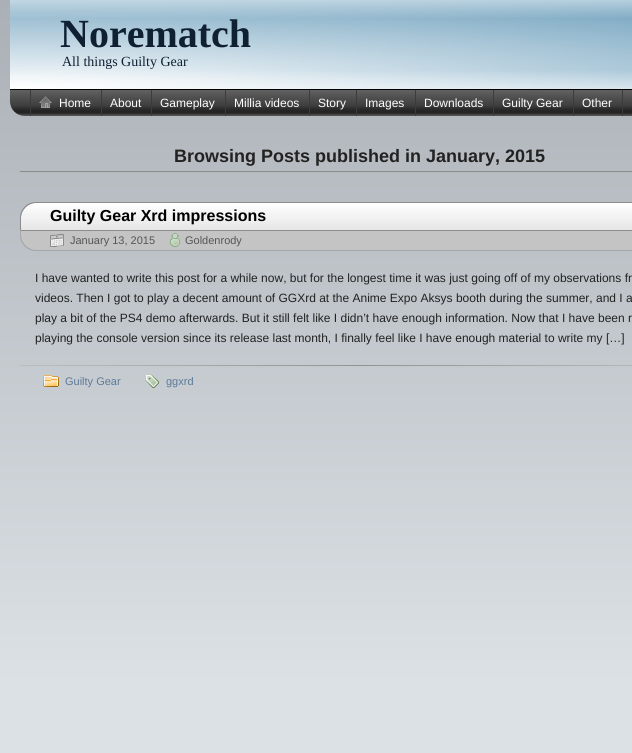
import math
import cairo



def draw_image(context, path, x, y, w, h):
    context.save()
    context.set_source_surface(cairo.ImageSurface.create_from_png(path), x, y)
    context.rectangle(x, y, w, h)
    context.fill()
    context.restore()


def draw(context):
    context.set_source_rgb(1, 1, 1)
    context.paint()
    gradient = cairo.LinearGradient(316, 0, 316, 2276)
    gradient.add_color_stop_rgba(0, 170 / 255, 176 / 255, 181 / 255, 1)
    gradient.add_color_stop_rgba(0.3, 220 / 255, 225 / 255, 230 / 255, 1)
    gradient.add_color_stop_rgba(1, 220 / 255, 225 / 255, 230 / 255, 1)
    context.set_source(gradient)
    context.rectangle(0, 0, 632, 753)
    context.fill()
    gradient = cairo.RadialGradient(0, 0, 0, 0, 0, 1)
    gradient.set_matrix(cairo.Matrix(1 / 1358, 0, 0, 1 / 126, -1 * 10 / 1358, -1 * 89 / 126))
    gradient.add_color_stop_rgba(0, 1, 1, 1, 1)
    gradient.add_color_stop_rgba(1, 83 / 255, 142 / 255, 176 / 255, 1)
    context.set_source(gradient)
    context.rectangle(10, 0, 622, 89)
    context.fill()
    gradient = cairo.LinearGradient(490, 0, 490, 89)
    gradient.add_color_stop_rgba(0, 1, 1, 1, 0.5)
    gradient.add_color_stop_rgba(0.21, 1, 1, 1, 0)
    gradient.add_color_stop_rgba(0.79, 1, 1, 1, 0)
    gradient.add_color_stop_rgba(1, 1, 1, 1, 0.5)
    context.set_source(gradient)
    context.rectangle(10, 0, 622, 89)
    context.fill()
    gradient = cairo.LinearGradient(490, 89, 490, 116)
    gradient.add_color_stop_rgba(0, 118 / 255, 118 / 255, 118 / 255, 1)
    gradient.add_color_stop_rgba(0.04, 98 / 255, 98 / 255, 98 / 255, 1)
    gradient.add_color_stop_rgba(0.32, 79 / 255, 79 / 255, 79 / 255, 1)
    gradient.add_color_stop_rgba(0.6, 64 / 255, 64 / 255, 64 / 255, 1)
    gradient.add_color_stop_rgba(0.76, 41 / 255, 41 / 255, 41 / 255, 1)
    gradient.add_color_stop_rgba(0.84, 35 / 255, 35 / 255, 35 / 255, 1)
    gradient.add_color_stop_rgba(0.88, 36 / 255, 36 / 255, 36 / 255, 1)
    gradient.add_color_stop_rgba(0.92, 50 / 255, 50 / 255, 50 / 255, 1)
    gradient.add_color_stop_rgba(0.96, 77 / 255, 77 / 255, 77 / 255, 1)
    gradient.add_color_stop_rgba(1, 87 / 255, 87 / 255, 87 / 255, 1)
    context.set_source(gradient)
    context.new_path()
    context.move_to(10, 89)
    context.line_to(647, 89)
    context.line_to(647, 101)
    context.curve_to(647, 109.5, 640.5, 116, 632, 116)
    context.line_to(25, 116)
    context.curve_to(16.5, 116, 10, 109.5, 10, 101)
    context.close_path()
    context.fill()
    context.set_source_rgb(0, 0, 0)
    context.rectangle(10, 89, 622, 1)
    context.fill()
    context.set_source_rgb(60 / 255, 60 / 255, 60 / 255)
    context.rectangle(30, 90, 1, 26)
    context.fill()
    context.rectangle(101, 90, 1, 26)
    context.fill()
    draw_image(context, "images/1.png", 39, 96, 13, 12)
    context.rectangle(151, 90, 1, 26)
    context.fill()
    context.rectangle(225, 90, 1, 26)
    context.fill()
    context.rectangle(309, 90, 1, 26)
    context.fill()
    context.rectangle(356, 90, 1, 26)
    context.fill()
    context.rectangle(415, 90, 1, 26)
    context.fill()
    context.rectangle(493, 90, 1, 26)
    context.fill()
    context.rectangle(573, 90, 1, 26)
    context.fill()
    context.rectangle(622, 90, 1, 26)
    context.fill()
    context.set_source_rgb(140 / 255, 140 / 255, 140 / 255)
    context.rectangle(20, 171, 612, 1)
    context.fill()
    gradient = cairo.LinearGradient(360, 203, 360, 230)
    gradient.add_color_stop_rgba(0, 1, 1, 1, 1)
    gradient.add_color_stop_rgba(1, 230 / 255, 230 / 255, 230 / 255, 1)
    context.set_source(gradient)
    context.new_path()
    context.move_to(36, 203)
    context.line_to(632, 203)
    context.curve_to(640.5, 203, 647, 209.5, 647, 218)
    context.line_to(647, 230)
    context.line_to(21, 230)
    context.line_to(21, 218)
    context.curve_to(21, 209.5, 27.5, 203, 36, 203)
    context.close_path()
    context.fill()
    context.set_source_rgb(138 / 255, 140 / 255, 141 / 255)
    context.new_path()
    context.move_to(36, 202)
    context.line_to(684, 202)
    context.curve_to(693, 202, 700, 209, 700, 218)
    context.line_to(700, 230)
    context.line_to(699, 230)
    context.line_to(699, 218)
    context.curve_to(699, 210, 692, 203, 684, 203)
    context.line_to(36, 203)
    context.curve_to(28, 203, 21, 210, 21, 218)
    context.line_to(21, 230)
    context.line_to(20, 230)
    context.line_to(20, 218)
    context.curve_to(20, 209, 27, 202, 36, 202)
    context.close_path()
    context.fill()
    context.set_source_rgb(140 / 255, 140 / 255, 140 / 255)
    context.rectangle(21, 230, 611, 1)
    context.fill()
    context.set_source_rgb(164 / 255, 166 / 255, 167 / 255)
    context.rectangle(20, 230, 1, 1)
    context.fill()
    context.set_source_rgb(196 / 255, 196 / 255, 196 / 255)
    context.new_path()
    context.move_to(21, 231)
    context.line_to(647, 231)
    context.line_to(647, 235)
    context.curve_to(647, 243.5, 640.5, 250, 632, 250)
    context.line_to(36, 250)
    context.curve_to(27.5, 250, 21, 243.5, 21, 235)
    context.close_path()
    context.fill()
    context.set_source_rgb(164 / 255, 166 / 255, 167 / 255)
    context.set_fill_rule(cairo.FillRule.EVEN_ODD)
    context.new_path()
    context.move_to(20, 231)
    context.line_to(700, 231)
    context.line_to(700, 235)
    context.curve_to(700, 244, 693, 251, 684, 251)
    context.line_to(36, 251)
    context.curve_to(27, 251, 20, 244, 20, 235)
    context.close_path()
    context.move_to(21, 231)
    context.line_to(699, 231)
    context.line_to(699, 235)
    context.curve_to(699, 243, 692, 250, 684, 250)
    context.line_to(36, 250)
    context.curve_to(28, 250, 21, 243, 21, 235)
    context.close_path()
    context.fill()
    draw_image(context, "images/2.png", 50, 234, 14, 13)
    draw_image(context, "images/3.png", 170, 233, 10, 14)
    gradient = cairo.LinearGradient(20, 366, 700, 366)
    gradient.add_color_stop_rgba(0, 186 / 255, 190 / 255, 194 / 255, 1)
    gradient.add_color_stop_rgba(0.5, 147 / 255, 147 / 255, 148 / 255, 1)
    gradient.add_color_stop_rgba(1, 186 / 255, 190 / 255, 194 / 255, 1)
    context.set_source(gradient)
    context.rectangle(20, 365, 612, 1)
    context.fill()
    draw_image(context, "images/4.png", 43, 375, 16, 12)
    draw_image(context, "images/5.png", 145, 374, 14, 14)
    context.select_font_face("Liberation Serif", cairo.FontSlant.NORMAL, cairo.FontWeight.BOLD)
    context.set_font_size(40)
    context.set_source_rgb(15 / 255, 32 / 255, 51 / 255)
    context.move_to(60, 47)
    context.show_text("Norematch")
    context.select_font_face("Liberation Serif")
    context.set_font_size(14)
    context.move_to(62, 66)
    context.show_text("All things Guilty Gear")
    context.select_font_face("Liberation Sans")
    context.set_font_size(12)
    context.set_source_rgb(1, 1, 1)
    context.move_to(59, 107)
    context.show_text("Home")
    context.move_to(110, 107)
    context.show_text("About")
    context.move_to(160, 107)
    context.show_text("Gameplay")
    context.move_to(234, 107)
    context.show_text("Millia videos")
    context.move_to(318, 107)
    context.show_text("Story")
    context.move_to(365, 107)
    context.show_text("Images")
    context.move_to(424, 107)
    context.show_text("Downloads")
    context.move_to(502, 107)
    context.show_text("Guilty Gear")
    context.move_to(582, 107)
    context.show_text("Other")
    context.select_font_face("Liberation Sans", cairo.FontSlant.NORMAL, cairo.FontWeight.BOLD)
    context.set_font_size(18)
    context.set_source_rgb(34 / 255, 34 / 255, 34 / 255)
    context.move_to(174, 162)
    context.show_text("Browsing Posts published in January, 2015")
    context.set_font_size(16)
    context.set_source_rgb(0, 0, 0)
    context.move_to(50, 221)
    context.show_text("Guilty Gear Xrd impressions")
    context.select_font_face("Liberation Sans")
    context.set_font_size(11)
    context.set_source_rgb(85 / 255, 85 / 255, 85 / 255)
    context.move_to(70, 244)
    context.show_text("January 13, 2015")
    context.move_to(185, 244)
    context.show_text("Goldenrody")
    context.set_font_size(12)
    context.set_source_rgb(34 / 255, 34 / 255, 34 / 255)
    context.move_to(35, 282)
    context.show_text("I have wanted to write this post for a while now, but for the longest time it was just going off of my observations fr")
    context.move_to(35, 302)
    context.show_text("videos. Then I got to play a decent amount of GGXrd at the Anime Expo Aksys booth during the summer, and I a")
    context.move_to(35, 322)
    context.show_text("play a bit of the PS4 demo afterwards. But it still felt like I didn’t have enough information. Now that I have been r")
    context.move_to(35, 342)
    context.show_text("playing the console version since its release last month, I finally feel like I have enough material to write my […]")
    context.set_font_size(11)
    context.set_source_rgb(92 / 255, 122 / 255, 153 / 255)
    context.move_to(65, 385)
    context.show_text("Guilty Gear")
    context.move_to(166, 385)
    context.show_text("ggxrd")


surface = cairo.ImageSurface(cairo.Format.RGB24, 632, 753)
context = cairo.Context(surface)
options = cairo.FontOptions()
options.set_hint_metrics(cairo.HintMetrics.OFF)
options.set_hint_style(cairo.HintStyle.NONE)
context.set_font_options(options)
context.set_miter_limit(4)
draw(context)
surface.write_to_png("out.png")
